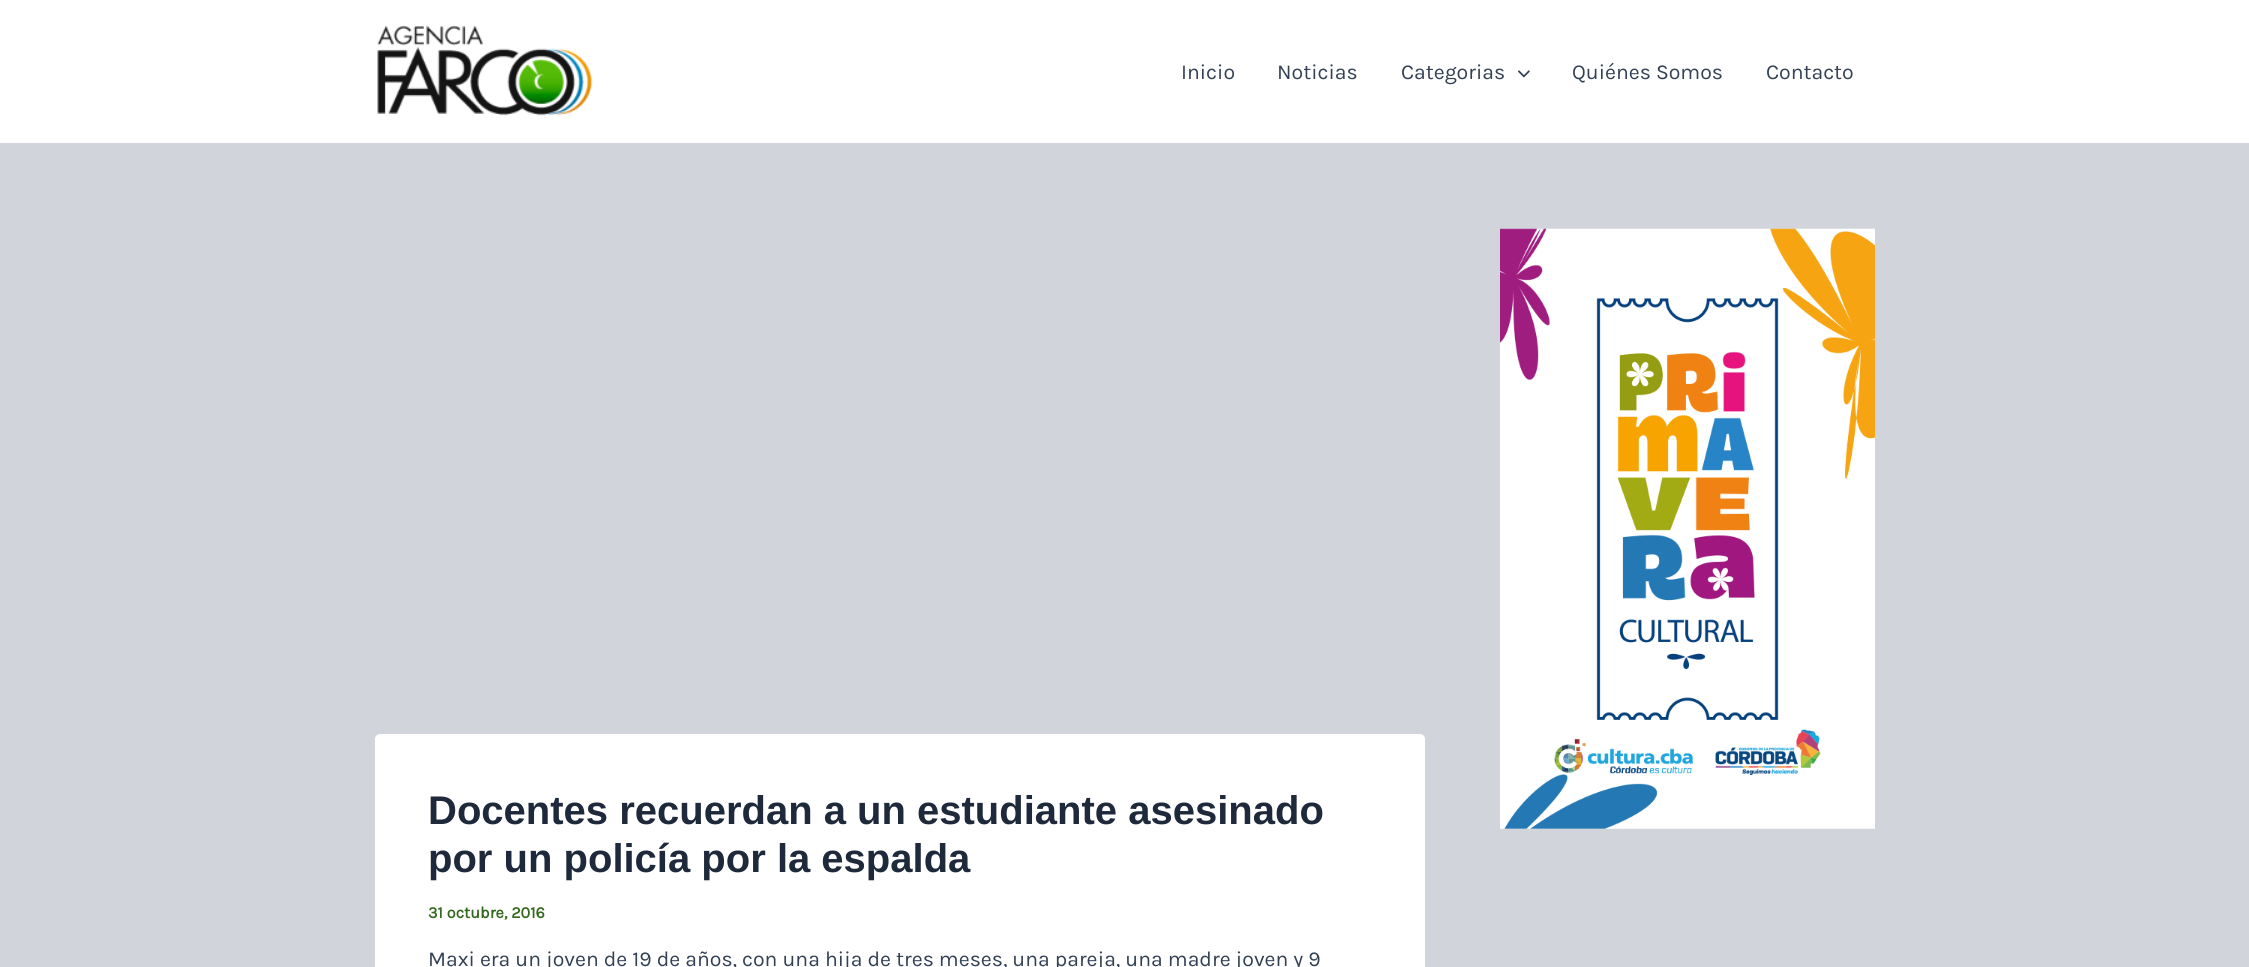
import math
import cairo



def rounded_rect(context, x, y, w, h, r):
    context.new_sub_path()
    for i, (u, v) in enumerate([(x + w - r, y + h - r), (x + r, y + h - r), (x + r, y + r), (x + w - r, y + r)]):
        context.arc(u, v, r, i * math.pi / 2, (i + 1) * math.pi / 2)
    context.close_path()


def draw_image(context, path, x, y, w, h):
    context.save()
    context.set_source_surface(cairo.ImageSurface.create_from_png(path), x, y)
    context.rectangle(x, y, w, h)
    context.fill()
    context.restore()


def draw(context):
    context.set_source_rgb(209 / 255, 213 / 255, 219 / 255)
    context.paint()
    context.set_source_rgb(1, 1, 1)
    context.rectangle(0, 0, 2249, 143)
    context.fill()
    draw_image(context, "images/1.png", 377, 25, 216, 91)
    draw_image(context, "images/2.png", 1518, 70, 12, 8)
    draw_image(context, "images/3.png", 1500, 228, 375, 601)
    rounded_rect(context, 375, 734, 1050, 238, 5)
    context.fill()
    context.select_font_face("Karla")
    context.set_font_size(21.25)
    context.set_source_rgb(51 / 255, 65 / 255, 85 / 255)
    context.move_to(1181, 79)
    context.show_text("Inicio")
    context.move_to(1277, 79)
    context.show_text("Noticias")
    context.move_to(1401, 79)
    context.show_text("Categorias")
    context.move_to(1572, 79)
    context.show_text("Quiénes Somos")
    context.move_to(1766, 79)
    context.show_text("Contacto")
    context.select_font_face("Liberation Sans", cairo.FontSlant.NORMAL, cairo.FontWeight.BOLD)
    context.set_font_size(40)
    context.set_source_rgb(30 / 255, 41 / 255, 59 / 255)
    context.move_to(428, 824)
    context.show_text("Docentes recuerdan a un estudiante asesinado")
    context.move_to(428, 872)
    context.show_text("por un policía por la espalda")
    context.select_font_face("Karla", cairo.FontSlant.NORMAL, cairo.FontWeight.BOLD)
    context.set_font_size(16.25)
    context.set_source_rgb(51 / 255, 105 / 255, 30 / 255)
    context.move_to(428, 918)
    context.show_text("31 octubre, 2016")
    context.select_font_face("Karla")
    context.set_font_size(21.25)
    context.set_source_rgb(51 / 255, 65 / 255, 85 / 255)
    context.move_to(428, 966)
    context.show_text("Maxi era un joven de 19 de años, con una hija de tres meses, una pareja, una madre joven y 9")


surface = cairo.ImageSurface(cairo.Format.RGB24, 2249, 967)
context = cairo.Context(surface)
options = cairo.FontOptions()
options.set_hint_metrics(cairo.HintMetrics.OFF)
options.set_hint_style(cairo.HintStyle.NONE)
context.set_font_options(options)
context.set_miter_limit(4)
draw(context)
surface.write_to_png("out.png")
